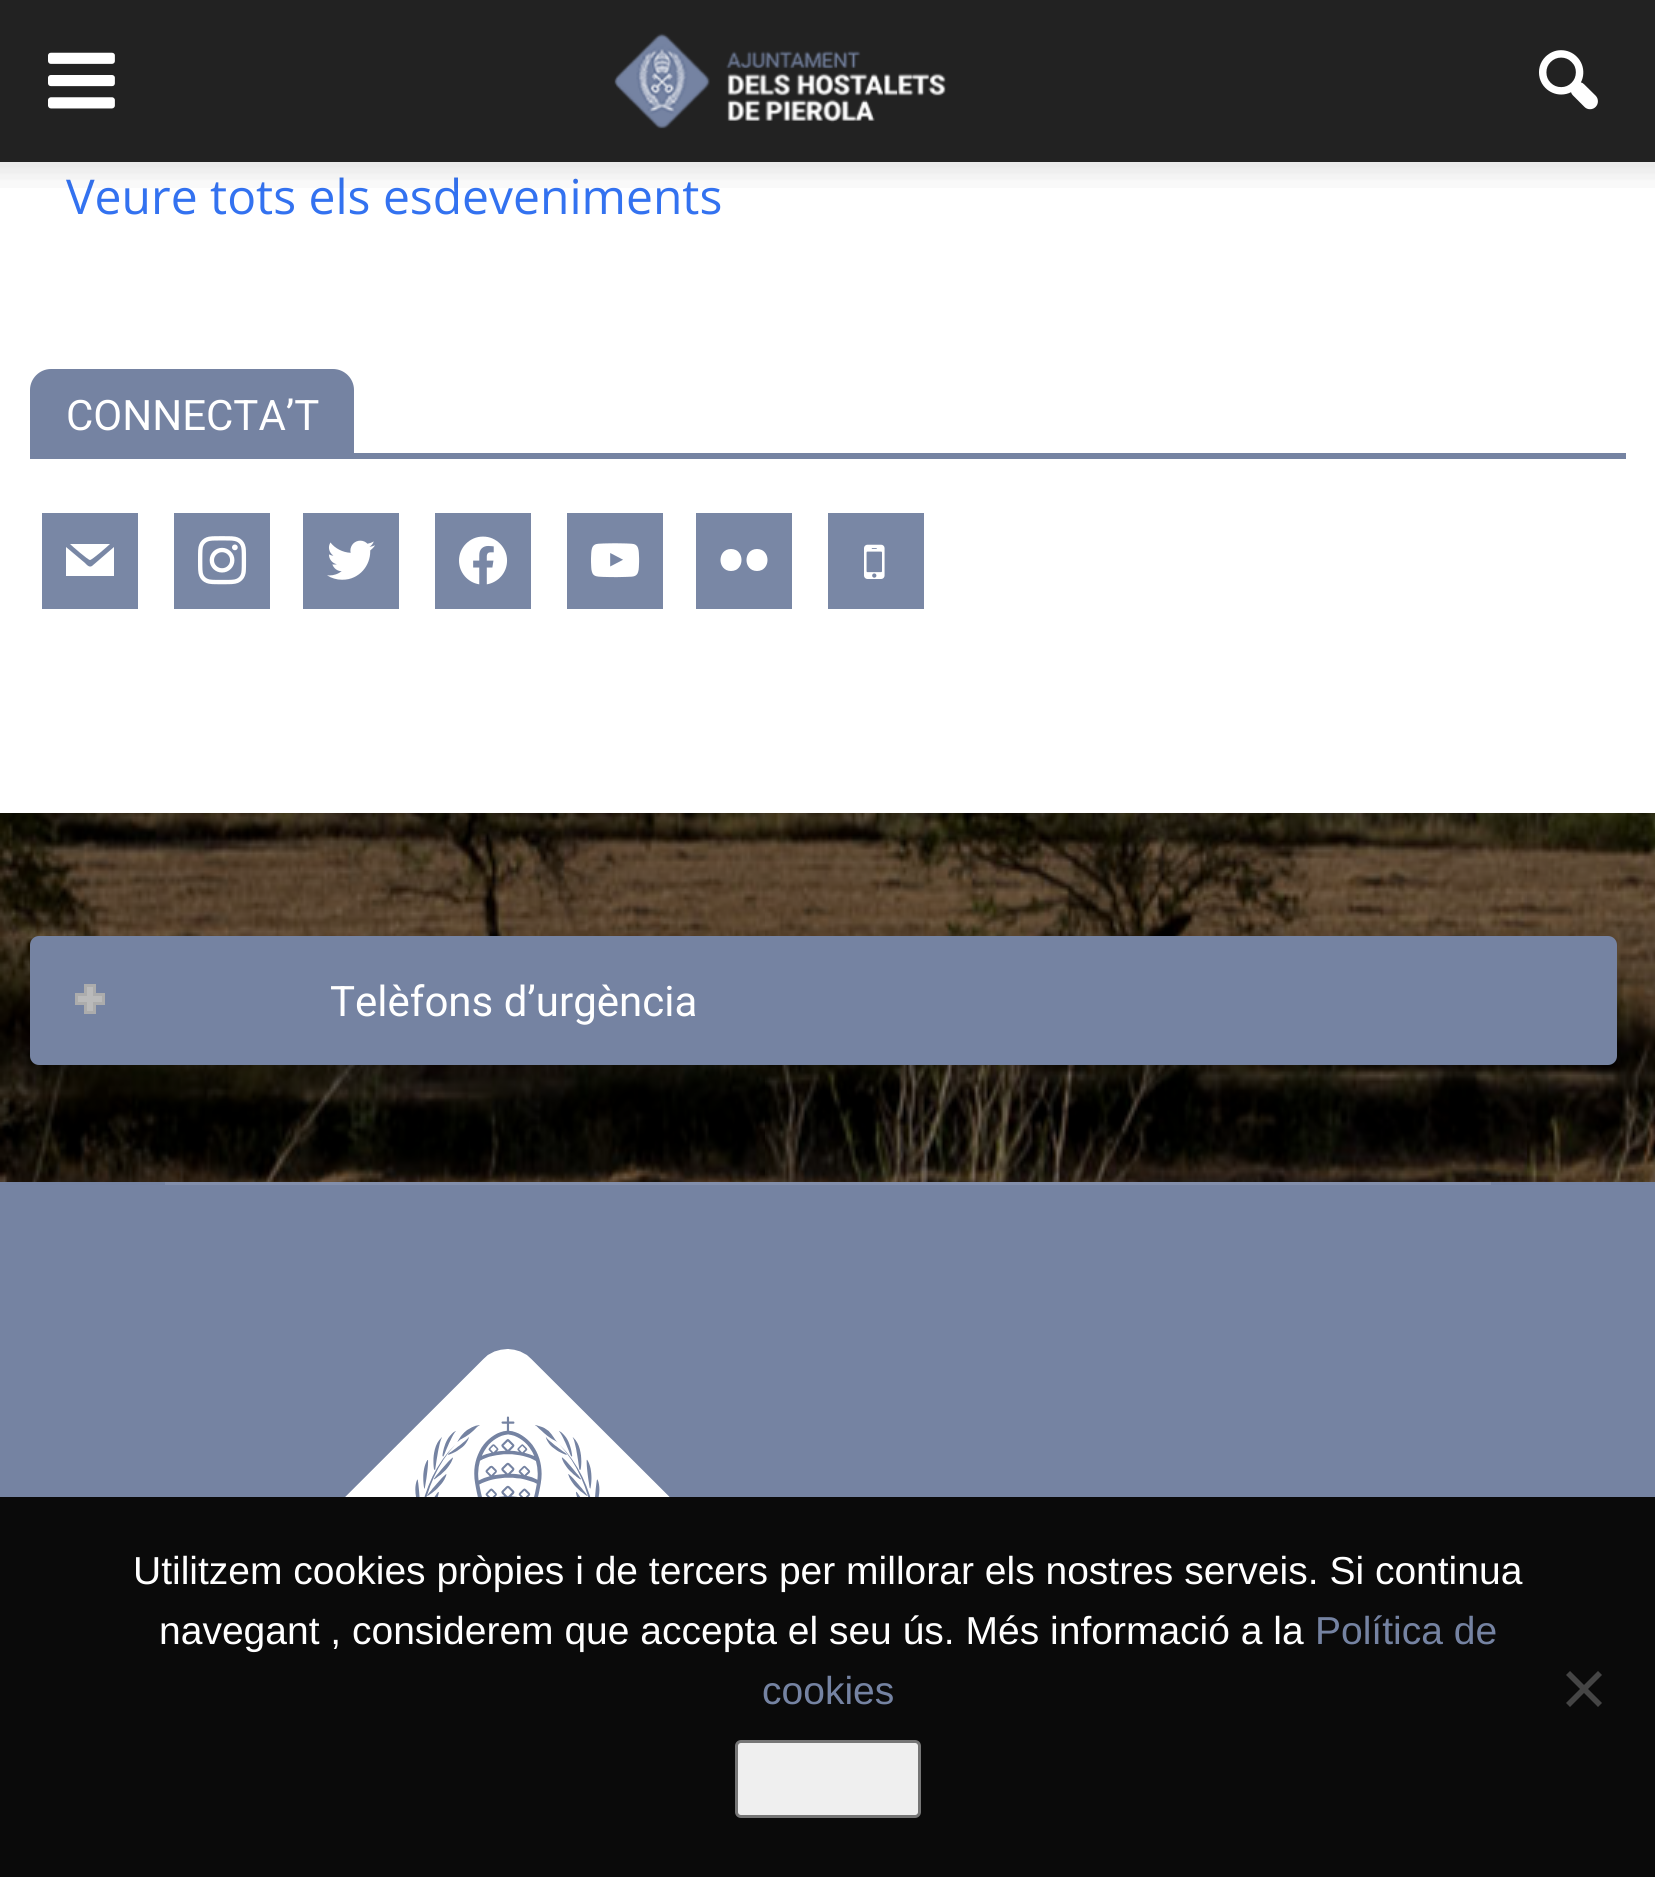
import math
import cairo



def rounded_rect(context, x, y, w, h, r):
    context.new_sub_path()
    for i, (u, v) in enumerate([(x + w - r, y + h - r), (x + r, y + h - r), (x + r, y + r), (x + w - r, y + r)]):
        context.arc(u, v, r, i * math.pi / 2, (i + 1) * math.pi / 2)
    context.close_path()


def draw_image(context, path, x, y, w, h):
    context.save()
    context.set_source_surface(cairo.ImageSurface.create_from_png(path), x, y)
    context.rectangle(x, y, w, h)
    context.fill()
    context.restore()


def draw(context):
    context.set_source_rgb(1, 1, 1)
    context.paint()
    draw_image(context, "images/1.png", 0, 813, 1655, 369)
    context.set_source_rgb(34 / 255, 34 / 255, 34 / 255)
    context.rectangle(0, 0, 1655, 162)
    context.fill()
    draw_image(context, "images/2.png", 48, 52, 67, 57)
    draw_image(context, "images/3.png", 614, 33, 332, 96)
    draw_image(context, "images/4.png", 1539, 50, 59, 60)
    context.set_source_rgb(117 / 255, 131 / 255, 162 / 255)
    context.rectangle(30, 453, 1596, 6)
    context.fill()
    context.new_path()
    context.move_to(51, 369)
    context.line_to(333, 369)
    context.curve_to(344.5, 369, 354, 378.5, 354, 390)
    context.line_to(354, 453)
    context.line_to(30, 453)
    context.line_to(30, 390)
    context.curve_to(30, 378.5, 39.5, 369, 51, 369)
    context.close_path()
    context.fill()
    context.set_source_rgb(121 / 255, 135 / 255, 165 / 255)
    context.rectangle(42, 513, 96, 96)
    context.fill()
    context.set_source_rgb(1, 1, 1)
    context.new_path()
    context.move_to(92, 566)
    context.curve_to(89, 568, 86, 564, 85, 563)
    context.line_to(66, 547)
    context.line_to(66, 576)
    context.line_to(114, 576)
    context.line_to(114, 547)
    context.close_path()
    context.move_to(90, 560)
    context.curve_to(92, 560, 108, 546, 110, 544)
    context.line_to(70, 544)
    context.curve_to(72, 546, 88, 560, 90, 560)
    context.close_path()
    context.fill()
    context.set_source_rgb(121 / 255, 135 / 255, 165 / 255)
    context.rectangle(174, 513, 96, 96)
    context.fill()
    draw_image(context, "images/6.png", 198, 536, 49, 49)
    context.rectangle(303, 513, 96, 96)
    context.fill()
    draw_image(context, "images/7.png", 327, 540, 48, 40)
    context.rectangle(435, 513, 96, 96)
    context.fill()
    draw_image(context, "images/8.png", 459, 536, 49, 49)
    context.rectangle(567, 513, 96, 96)
    context.fill()
    draw_image(context, "images/9.png", 591, 543, 49, 35)
    context.rectangle(696, 513, 96, 96)
    context.fill()
    context.set_source_rgb(1, 1, 1)
    context.new_path()
    context.move_to(731, 571)
    context.curve_to(717, 571, 717, 549, 731, 549)
    context.curve_to(745, 549, 745, 571, 731, 571)
    context.close_path()
    context.move_to(757, 571)
    context.curve_to(743, 571, 743, 549, 757, 549)
    context.curve_to(771, 549, 771, 571, 757, 571)
    context.close_path()
    context.fill()
    context.set_source_rgb(121 / 255, 135 / 255, 165 / 255)
    context.rectangle(828, 513, 96, 96)
    context.fill()
    draw_image(context, "images/10.png", 864, 544, 21, 35)
    context.set_source_rgba(0, 0, 0, 0.5)
    context.rectangle(0, 813, 1655, 369)
    context.fill()
    context.set_source_rgb(117 / 255, 131 / 255, 162 / 255)
    rounded_rect(context, 30, 936, 1587, 129, 9)
    context.fill()
    context.rectangle(76.5, 994.5, 27, 9)
    context.set_source_rgb(172 / 255, 172 / 255, 172 / 255)
    context.set_line_width(3)
    context.stroke()
    context.set_source_rgb(186 / 255, 186 / 255, 186 / 255)
    context.rectangle(85.5, 985.5, 9, 27)
    context.fill_preserve()
    context.set_source_rgb(172 / 255, 172 / 255, 172 / 255)
    context.stroke()
    context.set_source_rgb(186 / 255, 186 / 255, 186 / 255)
    context.rectangle(78, 996, 24, 6)
    context.fill()
    context.set_source_rgb(117 / 255, 131 / 255, 162 / 255)
    context.rectangle(0, 1182, 1655, 315)
    context.fill()
    context.set_source_rgb(131 / 255, 143 / 255, 171 / 255)
    context.rectangle(165, 1182, 1326, 3)
    context.fill()
    draw_image(context, "images/11.png", 345, 1349, 325, 148)
    context.set_source_rgb(10 / 255, 10 / 255, 10 / 255)
    context.rectangle(0, 1497, 1655, 380)
    context.fill()
    context.set_source_rgb(69 / 255, 69 / 255, 69 / 255)
    context.new_path()
    context.move_to(1598, 1671)
    context.line_to(1602, 1675)
    context.line_to(1570, 1707)
    context.line_to(1566, 1703)
    context.close_path()
    context.fill()
    context.new_path()
    context.move_to(1566, 1675)
    context.line_to(1570, 1671)
    context.line_to(1602, 1703)
    context.line_to(1598, 1707)
    context.close_path()
    context.fill()
    context.set_source_rgb(239 / 255, 239 / 255, 239 / 255)
    rounded_rect(context, 736.5, 1741.5, 183, 75, 4.5)
    context.fill_preserve()
    context.set_source_rgb(118 / 255, 118 / 255, 118 / 255)
    context.stroke()
    context.select_font_face("Open Sans")
    context.set_font_size(48)
    context.set_source_rgb(51 / 255, 114 / 255, 240 / 255)
    context.move_to(66, 214)
    context.show_text("Veure tots els esdeveniments")
    draw_image(context, "images/5.png", 0, 162, 1655, 26)
    context.select_font_face("Roboto")
    context.set_font_size(42)
    context.set_source_rgb(1, 1, 1)
    context.move_to(66, 430)
    context.show_text("CONNECTA’T")
    context.move_to(330, 1016)
    context.show_text("Telèfons d’urgència")
    context.select_font_face("Liberation Sans")
    context.set_font_size(39)
    context.move_to(133, 1584)
    context.show_text("Utilitzem cookies pròpies i de tercers per millorar els nostres serveis. Si continua")
    context.move_to(159, 1644)
    context.show_text("navegant , considerem que accepta el seu ús. Més informació a la")
    context.set_source_rgb(117 / 255, 131 / 255, 162 / 255)
    context.move_to(1315, 1644)
    context.show_text("Política de")
    context.move_to(762, 1704)
    context.show_text("cookies")


surface = cairo.ImageSurface(cairo.Format.RGB24, 1655, 1877)
context = cairo.Context(surface)
options = cairo.FontOptions()
options.set_hint_metrics(cairo.HintMetrics.OFF)
options.set_hint_style(cairo.HintStyle.NONE)
context.set_font_options(options)
context.set_miter_limit(4)
draw(context)
surface.write_to_png("out.png")
